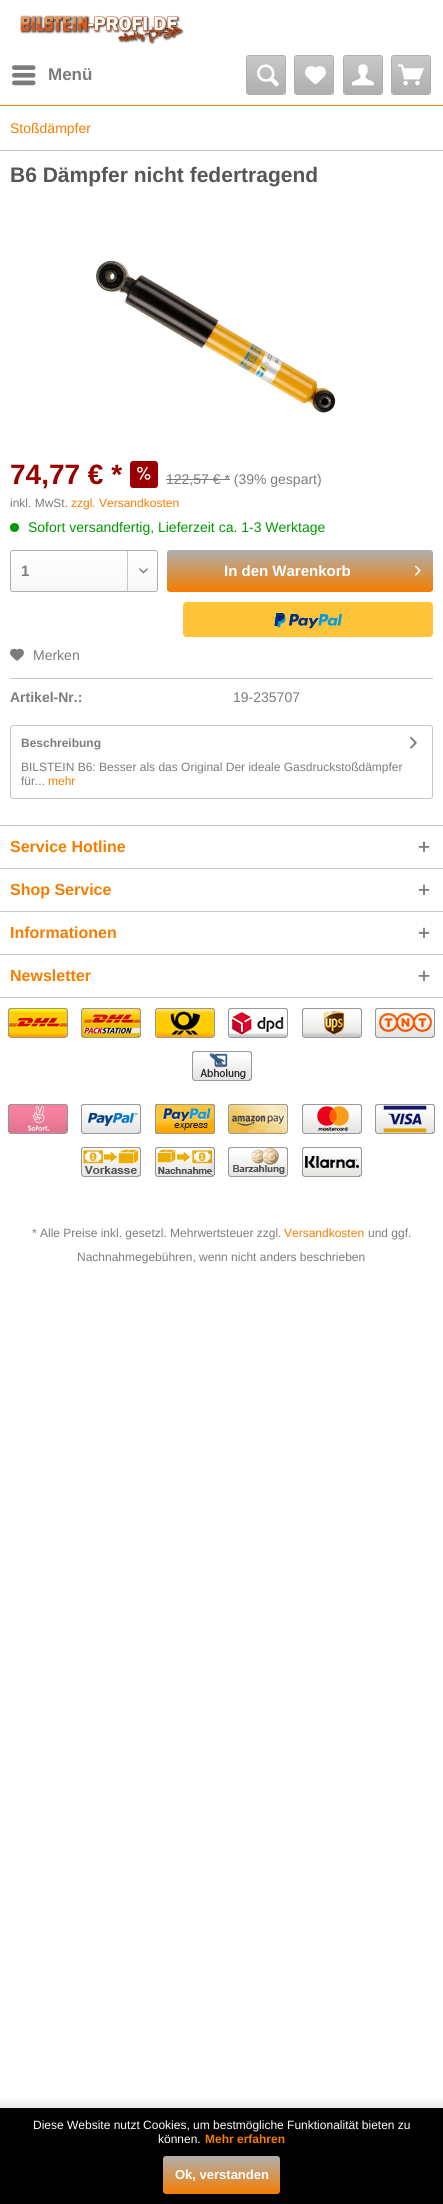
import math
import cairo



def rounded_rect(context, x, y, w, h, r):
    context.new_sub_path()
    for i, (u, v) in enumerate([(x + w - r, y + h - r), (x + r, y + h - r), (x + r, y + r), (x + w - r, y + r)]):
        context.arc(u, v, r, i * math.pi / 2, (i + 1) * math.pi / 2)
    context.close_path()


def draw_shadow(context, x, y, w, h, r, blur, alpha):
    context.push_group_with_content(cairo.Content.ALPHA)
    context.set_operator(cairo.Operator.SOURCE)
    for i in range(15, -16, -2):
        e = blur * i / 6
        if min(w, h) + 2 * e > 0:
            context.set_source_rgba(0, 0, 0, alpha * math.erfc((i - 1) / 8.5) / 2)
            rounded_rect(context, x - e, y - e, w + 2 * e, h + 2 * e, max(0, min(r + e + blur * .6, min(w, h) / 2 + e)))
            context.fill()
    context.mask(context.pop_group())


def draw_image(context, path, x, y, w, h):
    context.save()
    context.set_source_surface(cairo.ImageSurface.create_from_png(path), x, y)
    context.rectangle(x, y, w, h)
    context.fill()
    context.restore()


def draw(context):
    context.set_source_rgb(1, 1, 1)
    context.paint()
    context.set_source_rgb(245 / 255, 125 / 255, 0)
    context.rectangle(0, 105, 443, 1)
    context.fill()
    draw_image(context, "images/1.png", 20, 15, 164, 30)
    draw_image(context, "images/2.png", 12, 65, 24, 21)
    gradient = cairo.LinearGradient(266, 56, 266, 94)
    gradient.add_color_stop_rgba(0, 201 / 255, 201 / 255, 201 / 255, 1)
    gradient.add_color_stop_rgba(1, 174 / 255, 174 / 255, 174 / 255, 1)
    context.set_source(gradient)
    rounded_rect(context, 247, 56, 38, 38, 2)
    context.fill()
    rounded_rect(context, 246.5, 55.5, 39, 39, 2.5)
    context.set_source_rgb(174 / 255, 174 / 255, 174 / 255)
    context.set_line_width(1)
    context.stroke()
    draw_image(context, "images/3.png", 257, 64, 22, 23)
    gradient = cairo.LinearGradient(314, 56, 314, 94)
    gradient.add_color_stop_rgba(0, 201 / 255, 201 / 255, 201 / 255, 1)
    gradient.add_color_stop_rgba(1, 174 / 255, 174 / 255, 174 / 255, 1)
    context.set_source(gradient)
    rounded_rect(context, 295, 56, 38, 38, 2)
    context.fill()
    rounded_rect(context, 294.5, 55.5, 39, 39, 2.5)
    context.set_source_rgb(174 / 255, 174 / 255, 174 / 255)
    context.stroke()
    draw_image(context, "images/4.png", 305, 66, 21, 19)
    gradient = cairo.LinearGradient(363, 56, 363, 94)
    gradient.add_color_stop_rgba(0, 201 / 255, 201 / 255, 201 / 255, 1)
    gradient.add_color_stop_rgba(1, 174 / 255, 174 / 255, 174 / 255, 1)
    context.set_source(gradient)
    rounded_rect(context, 344, 56, 38, 38, 2)
    context.fill()
    rounded_rect(context, 343.5, 55.5, 39, 39, 2.5)
    context.set_source_rgb(174 / 255, 174 / 255, 174 / 255)
    context.stroke()
    draw_image(context, "images/5.png", 352, 64, 22, 22)
    gradient = cairo.LinearGradient(411, 56, 411, 94)
    gradient.add_color_stop_rgba(0, 201 / 255, 201 / 255, 201 / 255, 1)
    gradient.add_color_stop_rgba(1, 174 / 255, 174 / 255, 174 / 255, 1)
    context.set_source(gradient)
    rounded_rect(context, 392, 56, 38, 38, 2)
    context.fill()
    rounded_rect(context, 391.5, 55.5, 39, 39, 2.5)
    context.set_source_rgb(174 / 255, 174 / 255, 174 / 255)
    context.stroke()
    draw_image(context, "images/6.png", 398, 64, 26, 22)
    context.set_source_rgb(199 / 255, 199 / 255, 199 / 255)
    context.rectangle(0, 150, 443, 1)
    context.fill()
    draw_image(context, "images/7.png", 95, 260, 241, 157)
    context.set_source_rgb(153 / 255, 0, 0)
    rounded_rect(context, 130, 461, 28, 27, 3)
    context.fill()
    draw_image(context, "images/8.png", 137, 466, 14, 14)
    context.set_source_rgb(124 / 255, 124 / 255, 124 / 255)
    context.rectangle(166, 479, 64, 1)
    context.fill()
    context.set_source_rgb(0, 153 / 255, 0)
    context.arc(14.5, 527.5, 4.5, 0, 2 * math.pi)
    context.fill()
    gradient = cairo.LinearGradient(84, 551, 84, 591)
    gradient.add_color_stop_rgba(0, 1, 1, 1, 1)
    gradient.add_color_stop_rgba(1, 248 / 255, 248 / 255, 248 / 255, 1)
    context.set_source(gradient)
    rounded_rect(context, 11, 551, 146, 40, 2)
    context.fill()
    rounded_rect(context, 10.5, 550.5, 147, 41, 2.5)
    context.set_source_rgb(174 / 255, 174 / 255, 174 / 255)
    context.stroke()
    context.set_source_rgb(199 / 255, 199 / 255, 199 / 255)
    context.rectangle(127, 551, 1, 40)
    context.fill()
    draw_image(context, "images/9.png", 139, 568, 9, 6)
    gradient = cairo.LinearGradient(300, 550, 300, 592)
    gradient.add_color_stop_rgba(0, 175 / 255, 175 / 255, 175 / 255, 1)
    gradient.add_color_stop_rgba(1, 245 / 255, 125 / 255, 0, 1)
    context.set_source(gradient)
    rounded_rect(context, 167, 550, 266, 42, 3)
    context.fill()
    draw_image(context, "images/10.png", 415, 565, 6, 11)
    draw_image(context, "images/11.png", 183, 602, 250, 35)
    context.set_source_rgb(199 / 255, 199 / 255, 199 / 255)
    context.rectangle(10, 678, 423, 1)
    context.fill()
    draw_image(context, "images/12.png", 10, 648, 14, 13)
    rounded_rect(context, 10.5, 725.5, 422, 73, 2.5)
    context.stroke()
    draw_image(context, "images/13.png", 410, 736, 7, 13)
    context.rectangle(0, 825, 443, 1)
    context.fill()
    draw_image(context, "images/14.png", 418, 841, 12, 12)
    context.rectangle(0, 868, 443, 1)
    context.fill()
    draw_image(context, "images/14.png", 418, 884, 12, 12)
    context.rectangle(0, 911, 443, 1)
    context.fill()
    draw_image(context, "images/14.png", 418, 927, 12, 12)
    context.rectangle(0, 954, 443, 1)
    context.fill()
    context.rectangle(0, 997, 443, 1)
    context.fill()
    draw_image(context, "images/14.png", 418, 970, 12, 12)
    draw_image(context, "images/15.png", 8, 1008, 60, 30)
    draw_image(context, "images/16.png", 81, 1008, 60, 30)
    draw_image(context, "images/17.png", 155, 1008, 60, 30)
    draw_image(context, "images/18.png", 228, 1008, 60, 30)
    draw_image(context, "images/19.png", 302, 1008, 60, 30)
    draw_image(context, "images/20.png", 375, 1008, 60, 30)
    draw_image(context, "images/21.png", 192, 1051, 60, 30)
    draw_image(context, "images/22.png", 8, 1104, 60, 30)
    draw_image(context, "images/23.png", 81, 1104, 60, 30)
    draw_image(context, "images/24.png", 155, 1104, 60, 30)
    draw_image(context, "images/25.png", 228, 1104, 60, 30)
    draw_image(context, "images/26.png", 302, 1104, 60, 30)
    draw_image(context, "images/27.png", 375, 1104, 60, 30)
    draw_image(context, "images/28.png", 81, 1147, 60, 30)
    draw_image(context, "images/29.png", 155, 1147, 60, 30)
    draw_image(context, "images/30.png", 228, 1147, 60, 30)
    draw_image(context, "images/31.png", 302, 1147, 60, 30)
    context.set_source_rgb(0, 0, 0)
    draw_shadow(context, -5, 2103, 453, 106, 0, 5, 0.1)
    context.set_source_rgb(0, 0, 0)
    context.rectangle(0, 2108, 443, 96)
    context.fill()
    gradient = cairo.LinearGradient(222, 2156, 222, 2194)
    gradient.add_color_stop_rgba(0, 175 / 255, 175 / 255, 175 / 255, 1)
    gradient.add_color_stop_rgba(1, 245 / 255, 125 / 255, 0, 1)
    context.set_source(gradient)
    rounded_rect(context, 163, 2156, 117, 38, 3)
    context.fill()
    context.select_font_face("Liberation Sans", cairo.FontSlant.NORMAL, cairo.FontWeight.BOLD)
    context.set_font_size(17)
    context.set_source_rgb(124 / 255, 124 / 255, 124 / 255)
    context.move_to(48, 80)
    context.show_text("Menü")
    context.select_font_face("Liberation Sans")
    context.set_font_size(14)
    context.set_source_rgb(245 / 255, 125 / 255, 0)
    context.move_to(10, 133)
    context.show_text("Stoßdämpfer")
    context.select_font_face("Liberation Sans", cairo.FontSlant.NORMAL, cairo.FontWeight.BOLD)
    context.set_font_size(21)
    context.set_source_rgb(86 / 255, 86 / 255, 86 / 255)
    context.move_to(10, 182)
    context.show_text("B6 Dämpfer nicht federtragend")
    context.set_font_size(28)
    context.set_source_rgb(153 / 255, 0, 0)
    context.move_to(10, 484)
    context.show_text("74,77 € *")
    context.select_font_face("Liberation Sans")
    context.set_font_size(14)
    context.set_source_rgb(124 / 255, 124 / 255, 124 / 255)
    context.move_to(166, 484)
    context.show_text("122,57 € * (39% gespart)")
    context.set_font_size(12)
    context.move_to(10, 507)
    context.show_text("inkl. MwSt.")
    context.set_source_rgb(245 / 255, 125 / 255, 0)
    context.move_to(71, 507)
    context.show_text("zzgl. Versandkosten")
    context.set_font_size(14)
    context.set_source_rgb(0, 153 / 255, 0)
    context.move_to(28, 532)
    context.show_text("Sofort versandfertig, Lieferzeit ca. 1-3 Werktage")
    context.select_font_face("Liberation Sans", cairo.FontSlant.NORMAL, cairo.FontWeight.BOLD)
    context.set_font_size(15)
    context.set_source_rgb(124 / 255, 124 / 255, 124 / 255)
    context.move_to(21, 576)
    context.show_text("1")
    context.set_source_rgb(1, 1, 1)
    context.move_to(224, 576)
    context.show_text("In den Warenkorb")
    context.select_font_face("Liberation Sans")
    context.set_font_size(14)
    context.set_source_rgb(124 / 255, 124 / 255, 124 / 255)
    context.move_to(33, 660)
    context.show_text("Merken")
    context.select_font_face("Liberation Sans", cairo.FontSlant.NORMAL, cairo.FontWeight.BOLD)
    context.move_to(10, 702)
    context.show_text("Artikel-Nr.:")
    context.select_font_face("Liberation Sans")
    context.move_to(233, 702)
    context.show_text("19-235707")
    context.select_font_face("Liberation Sans", cairo.FontSlant.NORMAL, cairo.FontWeight.BOLD)
    context.set_font_size(12)
    context.move_to(21, 747)
    context.show_text("Beschreibung")
    context.select_font_face("Liberation Sans")
    context.move_to(21, 771)
    context.show_text("BILSTEIN B6: Besser als das Original Der ideale Gasdruckstoßdämpfer")
    context.move_to(21, 785)
    context.show_text("für...")
    context.set_source_rgb(245 / 255, 125 / 255, 0)
    context.move_to(48, 785)
    context.show_text("mehr")
    context.select_font_face("Liberation Sans", cairo.FontSlant.NORMAL, cairo.FontWeight.BOLD)
    context.set_font_size(16)
    context.move_to(10, 852)
    context.show_text("Service Hotline")
    context.move_to(10, 895)
    context.show_text("Shop Service")
    context.move_to(10, 938)
    context.show_text("Informationen")
    context.move_to(10, 981)
    context.show_text("Newsletter")
    context.select_font_face("Liberation Sans")
    context.set_font_size(12)
    context.set_source_rgb(124 / 255, 124 / 255, 124 / 255)
    context.move_to(32, 1237)
    context.show_text("* Alle Preise inkl. gesetzl. Mehrwertsteuer zzgl.")
    context.set_source_rgb(245 / 255, 125 / 255, 0)
    context.move_to(284, 1237)
    context.show_text("Versandkosten")
    context.set_source_rgb(124 / 255, 124 / 255, 124 / 255)
    context.move_to(368, 1237)
    context.show_text("und ggf.")
    context.move_to(77, 1261)
    context.show_text("Nachnahmegebühren, wenn nicht anders beschrieben")
    context.set_source_rgb(1, 1, 1)
    context.move_to(33, 2129)
    context.show_text("Diese Website nutzt Cookies, um bestmögliche Funktionalität bieten zu")
    context.move_to(158, 2143)
    context.show_text("können.")
    context.select_font_face("Liberation Sans", cairo.FontSlant.NORMAL, cairo.FontWeight.BOLD)
    context.set_source_rgb(245 / 255, 125 / 255, 0)
    context.move_to(205, 2143)
    context.show_text("Mehr erfahren")
    context.set_font_size(13)
    context.set_source_rgb(1, 1, 1)
    context.move_to(175, 2179)
    context.show_text("Ok, verstanden")


surface = cairo.ImageSurface(cairo.Format.RGB24, 443, 2204)
context = cairo.Context(surface)
options = cairo.FontOptions()
options.set_hint_metrics(cairo.HintMetrics.OFF)
options.set_hint_style(cairo.HintStyle.NONE)
context.set_font_options(options)
context.set_miter_limit(4)
draw(context)
surface.write_to_png("out.png")
